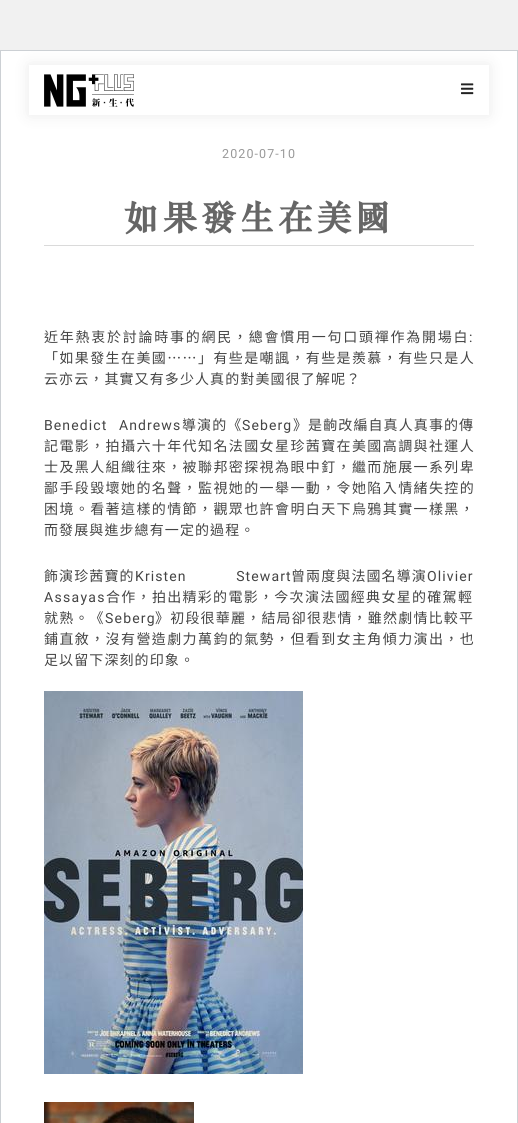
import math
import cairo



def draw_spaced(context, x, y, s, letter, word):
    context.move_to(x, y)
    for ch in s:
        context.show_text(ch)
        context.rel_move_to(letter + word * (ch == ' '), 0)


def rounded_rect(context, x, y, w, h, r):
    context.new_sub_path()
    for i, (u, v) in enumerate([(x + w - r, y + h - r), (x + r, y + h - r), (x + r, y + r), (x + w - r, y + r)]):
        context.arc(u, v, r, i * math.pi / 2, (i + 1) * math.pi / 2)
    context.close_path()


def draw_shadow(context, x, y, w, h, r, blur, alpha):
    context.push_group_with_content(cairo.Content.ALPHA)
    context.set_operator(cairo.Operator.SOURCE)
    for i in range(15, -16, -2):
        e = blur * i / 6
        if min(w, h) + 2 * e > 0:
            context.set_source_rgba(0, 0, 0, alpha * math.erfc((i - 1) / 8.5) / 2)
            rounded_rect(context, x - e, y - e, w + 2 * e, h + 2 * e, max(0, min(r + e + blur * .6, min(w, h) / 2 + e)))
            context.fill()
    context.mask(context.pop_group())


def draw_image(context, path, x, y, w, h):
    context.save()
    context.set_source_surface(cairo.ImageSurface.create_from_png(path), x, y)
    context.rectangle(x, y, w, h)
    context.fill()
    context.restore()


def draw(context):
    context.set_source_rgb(241 / 255, 241 / 255, 241 / 255)
    context.paint()
    context.set_source_rgb(1, 1, 1)
    context.rectangle(0.5, 50.5, 517, 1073)
    context.fill_preserve()
    context.set_source_rgb(204 / 255, 208 / 255, 212 / 255)
    context.set_line_width(1)
    context.stroke()
    context.save()
    context.set_fill_rule(cairo.FillRule.EVEN_ODD)
    context.new_path()
    context.move_to(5, 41)
    context.line_to(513, 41)
    context.line_to(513, 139)
    context.line_to(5, 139)
    context.close_path()
    context.move_to(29, 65)
    context.line_to(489, 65)
    context.line_to(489, 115)
    context.line_to(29, 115)
    context.close_path()
    context.clip()
    context.set_source_rgb(34 / 255, 34 / 255, 34 / 255)
    draw_shadow(context, 29, 65, 460, 50, 0, 7.5, 0.1)
    context.restore()
    draw_image(context, "images/1.png", 44, 74, 90, 33)
    draw_image(context, "images/2.png", 461, 83, 13, 12)
    context.set_source_rgb(218 / 255, 218 / 255, 218 / 255)
    context.rectangle(44, 245, 430, 1)
    context.fill()
    draw_image(context, "images/3.png", 44, 691, 259, 383)
    draw_image(context, "images/4.png", 44, 1102, 150, 21)
    context.select_font_face("Roboto")
    context.set_font_size(12.5)
    context.set_source_rgb(153 / 255, 153 / 255, 153 / 255)
    draw_spaced(context, 222, 158, "2020-07-10", 1.1, 0)
    context.select_font_face("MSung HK", cairo.FontSlant.NORMAL, cairo.FontWeight.BOLD)
    context.set_font_size(35)
    context.set_source_rgb(102 / 255, 102 / 255, 102 / 255)
    draw_spaced(context, 124, 231, "如果發生在美國", 3.5, 0)
    context.select_font_face("Noto Sans CJK TC")
    context.set_font_size(14)
    context.set_source_rgb(68 / 255, 68 / 255, 68 / 255)
    draw_spaced(context, 44, 342, "近年熱衷於討論時事的網民，總會慣用一句口頭禪作為開場白", 1.75, 0)
    context.select_font_face("Roboto")
    draw_spaced(context, 469, 342, ":", 1.75, 0)
    context.select_font_face("Noto Sans CJK TC")
    draw_spaced(context, 44, 363, "「如果發生在美國⋯⋯」有些是嘲諷，有些是羨慕，有些只是人", 1.4, 0)
    draw_spaced(context, 44, 384, "云亦云，其實又有多少人真的對美國很了解呢？", 1.1, 0)
    context.select_font_face("Roboto")
    draw_spaced(context, 44, 430, "Benedict Andrews", 1.1, 7)
    context.select_font_face("Noto Sans CJK TC")
    draw_spaced(context, 182, 430, "導演的《", 1.1, 0)
    context.select_font_face("Roboto")
    draw_spaced(context, 242, 430, "Seberg", 1.1, 0)
    context.select_font_face("Noto Sans CJK TC")
    draw_spaced(context, 293, 430, "》是齣改編自真人真事的傳", 1.1, 0)
    draw_spaced(context, 44, 451, "記電影，拍攝六十年代知名法國女星珍茜寶在美國高調與社運人", 1.4, 0)
    draw_spaced(context, 44, 472, "士及黑人組織往來，被聯邦密探視為眼中釘，繼而施展一系列卑", 1.4, 0)
    draw_spaced(context, 44, 493, "鄙手段毀壞她的名聲，監視她的一舉一動，令她陷入情緒失控的", 1.4, 0)
    draw_spaced(context, 44, 514, "困境。看著這樣的情節，觀眾也許會明白天下烏鴉其實一樣黑，", 1.4, 0)
    draw_spaced(context, 44, 535, "而發展與進步總有一定的過程。", 1.1, 0)
    draw_spaced(context, 44, 581, "飾演珍茜寶的", 1.1, 0)
    context.select_font_face("Roboto")
    draw_spaced(context, 135, 581, "Kristen Stewart", 1.1, 45)
    context.select_font_face("Noto Sans CJK TC")
    draw_spaced(context, 291, 581, "曾兩度與法國名導演", 1.1, 0)
    context.select_font_face("Roboto")
    draw_spaced(context, 427, 581, "Olivier", 1.1, 0)
    draw_spaced(context, 44, 602, "Assayas", 1.3, 0)
    context.select_font_face("Noto Sans CJK TC")
    draw_spaced(context, 106, 602, "合作，拍出精彩的電影，今次演法國經典女星的確駕輕", 1.3, 0)
    draw_spaced(context, 44, 623, "就熟。《", 1.2, 0)
    context.select_font_face("Roboto")
    draw_spaced(context, 105, 623, "Seberg", 1.2, 0)
    context.select_font_face("Noto Sans CJK TC")
    draw_spaced(context, 155, 623, "》初段很華麗，結局卻很悲情，雖然劇情比較平", 1.2, 0)
    draw_spaced(context, 44, 644, "鋪直敘，沒有營造劇力萬鈞的氣勢，但看到女主角傾力演出，也", 1.4, 0)
    draw_spaced(context, 44, 665, "足以留下深刻的印象。", 1.1, 0)


surface = cairo.ImageSurface(cairo.Format.RGB24, 518, 1123)
context = cairo.Context(surface)
options = cairo.FontOptions()
options.set_hint_metrics(cairo.HintMetrics.OFF)
options.set_hint_style(cairo.HintStyle.NONE)
context.set_font_options(options)
context.set_miter_limit(4)
draw(context)
surface.write_to_png("out.png")
